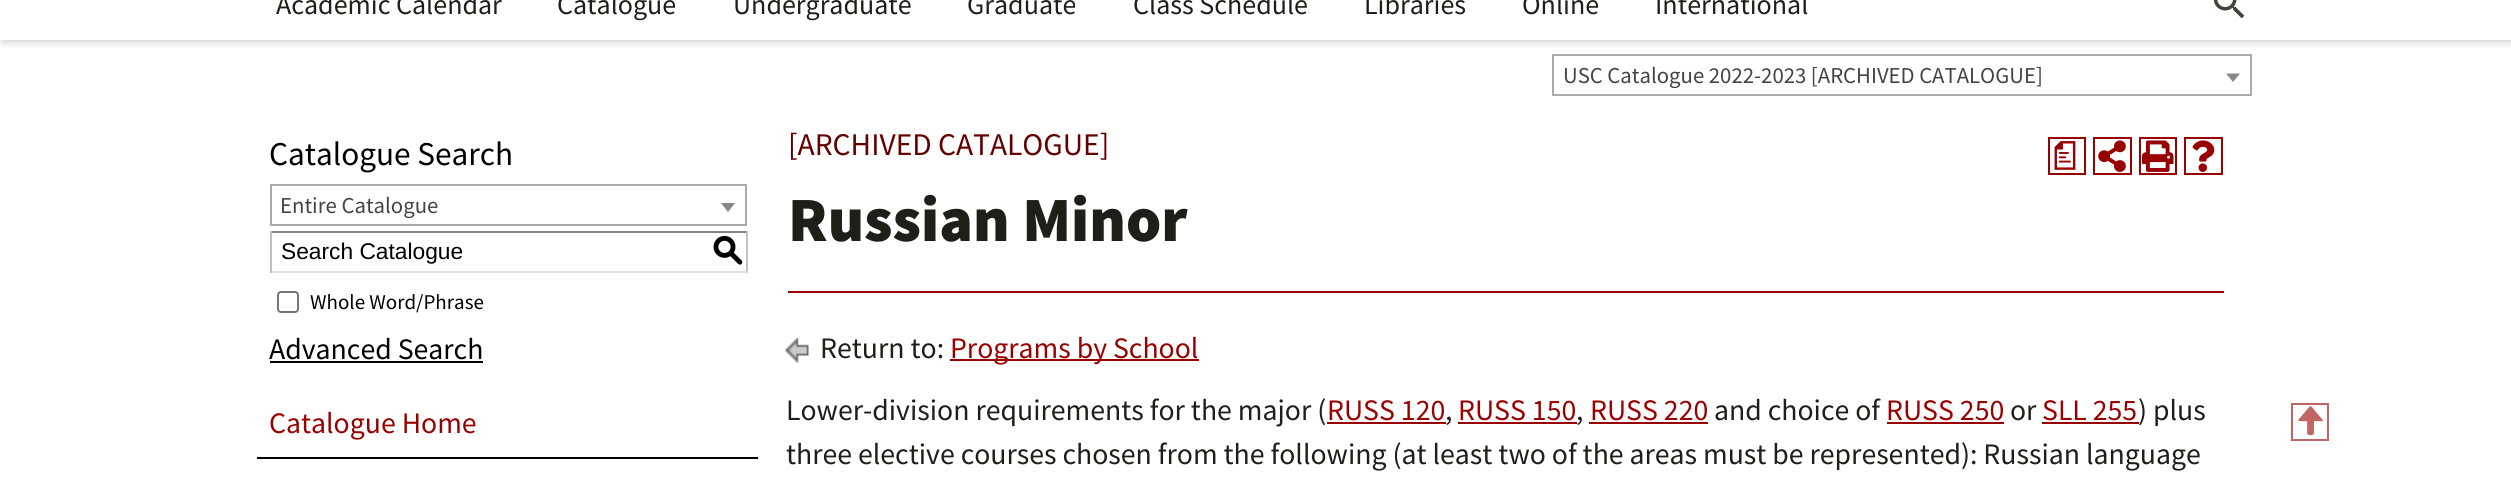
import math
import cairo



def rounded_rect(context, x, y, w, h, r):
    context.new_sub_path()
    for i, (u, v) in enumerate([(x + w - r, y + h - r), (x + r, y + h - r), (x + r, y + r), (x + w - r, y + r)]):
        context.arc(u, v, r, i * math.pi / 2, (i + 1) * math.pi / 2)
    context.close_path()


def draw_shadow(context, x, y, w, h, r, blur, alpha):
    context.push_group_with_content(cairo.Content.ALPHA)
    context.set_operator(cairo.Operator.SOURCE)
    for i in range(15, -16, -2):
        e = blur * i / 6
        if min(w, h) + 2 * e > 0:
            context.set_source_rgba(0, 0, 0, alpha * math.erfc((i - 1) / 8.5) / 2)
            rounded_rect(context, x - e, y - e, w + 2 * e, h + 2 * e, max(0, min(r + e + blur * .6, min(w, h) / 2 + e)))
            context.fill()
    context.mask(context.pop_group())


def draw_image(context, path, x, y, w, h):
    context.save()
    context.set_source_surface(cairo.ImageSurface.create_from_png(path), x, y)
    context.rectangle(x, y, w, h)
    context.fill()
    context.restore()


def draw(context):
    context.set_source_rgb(1, 1, 1)
    context.paint()
    context.save()
    context.rectangle(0, 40, 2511, 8)
    context.clip()
    context.set_source_rgb(0, 0, 0)
    draw_shadow(context, 2, -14, 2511, 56, 0, 4.5, 0.2)
    context.restore()
    draw_image(context, "images/1.png", 2213, 0, 32, 19)
    context.rectangle(1553, 55, 698, 40)
    context.set_source_rgb(170 / 255, 170 / 255, 170 / 255)
    context.stroke()
    context.set_source_rgb(136 / 255, 136 / 255, 136 / 255)
    context.new_path()
    context.move_to(2226, 73.5)
    context.line_to(2240, 73.5)
    context.line_to(2233, 82)
    context.close_path()
    context.fill()
    context.rectangle(271, 185, 475, 40)
    context.set_source_rgb(170 / 255, 170 / 255, 170 / 255)
    context.stroke()
    context.set_source_rgb(136 / 255, 136 / 255, 136 / 255)
    context.new_path()
    context.move_to(721, 203)
    context.line_to(735, 203)
    context.line_to(728, 212)
    context.close_path()
    context.fill()
    context.set_source_rgb(132 / 255, 132 / 255, 132 / 255)
    context.rectangle(270, 231, 477, 2)
    context.fill()
    context.set_source_rgb(193 / 255, 193 / 255, 193 / 255)
    context.rectangle(746, 231, 2, 42)
    context.fill()
    context.set_source_rgb(225 / 255, 225 / 255, 225 / 255)
    context.rectangle(270, 271, 477, 2)
    context.fill()
    context.set_source_rgb(193 / 255, 193 / 255, 193 / 255)
    context.rectangle(270, 231, 2, 42)
    context.fill()
    rounded_rect(context, 278, 292, 20, 20, 3)
    context.set_source_rgb(118 / 255, 118 / 255, 118 / 255)
    context.stroke()
    context.set_source_rgb(0, 0, 0)
    context.rectangle(270, 361, 213, 2)
    context.fill()
    context.rectangle(257, 457, 501, 2)
    context.fill()
    context.rectangle(2049, 138, 36, 36)
    context.set_source_rgb(153 / 255, 0, 0)
    context.stroke()
    context.rectangle(2094, 138, 37, 36)
    context.stroke()
    draw_image(context, "images/2.png", 2098, 140, 28, 32)
    context.rectangle(2140, 138, 36, 36)
    context.stroke()
    draw_image(context, "images/3.png", 2142, 140, 32, 32)
    context.rectangle(2185, 138, 37, 36)
    context.stroke()
    draw_image(context, "images/4.png", 2192, 140, 23, 32)
    context.rectangle(788, 291, 1436, 2)
    context.fill()
    draw_image(context, "images/5.png", 785, 338, 24, 25)
    context.rectangle(950, 359, 249, 2)
    context.fill()
    context.rectangle(1327, 422, 119, 2)
    context.fill()
    context.rectangle(1458, 422, 119, 2)
    context.fill()
    context.rectangle(1589, 422, 119, 2)
    context.fill()
    context.rectangle(1887, 422, 117, 2)
    context.fill()
    context.rectangle(2042, 422, 97, 2)
    context.fill()
    context.rectangle(2292, 404, 36, 36)
    context.set_source_rgb(194 / 255, 101 / 255, 101 / 255)
    context.stroke()
    context.select_font_face("Source Sans Pro")
    context.set_font_size(28)
    context.set_source_rgb(31 / 255, 30 / 255, 24 / 255)
    context.move_to(276, 14)
    context.show_text("Academic Calendar")
    context.move_to(557, 14)
    context.show_text("Catalogue")
    context.move_to(733, 14)
    context.show_text("Undergraduate")
    context.move_to(967, 14)
    context.show_text("Graduate")
    context.move_to(1133, 14)
    context.show_text("Class Schedule")
    context.move_to(1364, 14)
    context.show_text("Libraries")
    context.move_to(1522, 14)
    context.show_text("Online")
    context.move_to(1655, 14)
    context.show_text("International")
    context.set_font_size(22.75)
    context.set_source_rgb(68 / 255, 68 / 255, 68 / 255)
    context.move_to(1563, 83)
    context.show_text("USC Catalogue 2022-2023 [ARCHIVED CATALOGUE]")
    context.set_font_size(33.25)
    context.set_source_rgb(0, 0, 0)
    context.move_to(269, 165)
    context.show_text("Catalogue Search")
    context.set_font_size(22.75)
    context.set_source_rgb(68 / 255, 68 / 255, 68 / 255)
    context.move_to(280, 213)
    context.show_text("Entire Catalogue")
    context.select_font_face("Liberation Sans")
    context.set_source_rgb(0, 0, 0)
    context.move_to(281, 259)
    context.show_text("Search Catalogue")
    context.select_font_face("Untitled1 Medium")
    context.set_font_size(31.5)
    context.move_to(712, 260)
    context.show_text("S")
    context.select_font_face("Source Sans Pro")
    context.set_font_size(21)
    context.move_to(310, 309)
    context.show_text("Whole Word/Phrase")
    context.set_font_size(29.75)
    context.move_to(269, 359)
    context.show_text("Advanced Search")
    context.set_source_rgb(153 / 255, 0, 0)
    context.move_to(269, 433)
    context.show_text("Catalogue Home")
    context.set_font_size(31.5)
    context.set_source_rgb(102 / 255, 0, 0)
    context.move_to(788, 155)
    context.show_text("[ARCHIVED CATALOGUE]")
    context.select_font_face("Untitled1 Medium")
    context.set_source_rgb(153 / 255, 0, 0)
    context.move_to(2049, 165)
    context.show_text("a")
    context.select_font_face("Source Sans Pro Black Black")
    context.set_font_size(63)
    context.set_source_rgb(31 / 255, 30 / 255, 24 / 255)
    context.move_to(788, 241)
    context.show_text("Russian Minor")
    context.select_font_face("Source Sans Pro")
    context.set_font_size(29.75)
    context.move_to(820, 358)
    context.show_text("Return to:")
    context.set_source_rgb(153 / 255, 0, 0)
    context.move_to(950, 358)
    context.show_text("Programs by School")
    context.set_source_rgb(31 / 255, 30 / 255, 24 / 255)
    context.move_to(786, 420)
    context.show_text("Lower-division requirements for the major (")
    context.set_source_rgb(153 / 255, 0, 0)
    context.move_to(1327, 420)
    context.show_text("RUSS 120")
    context.set_source_rgb(31 / 255, 30 / 255, 24 / 255)
    context.move_to(1445, 420)
    context.show_text(",")
    context.set_source_rgb(153 / 255, 0, 0)
    context.move_to(1458, 420)
    context.show_text("RUSS 150")
    context.set_source_rgb(31 / 255, 30 / 255, 24 / 255)
    context.move_to(1576, 420)
    context.show_text(",")
    context.set_source_rgb(153 / 255, 0, 0)
    context.move_to(1590, 420)
    context.show_text("RUSS 220")
    context.set_source_rgb(31 / 255, 30 / 255, 24 / 255)
    context.move_to(1714, 420)
    context.show_text("and choice of")
    context.set_source_rgb(153 / 255, 0, 0)
    context.move_to(1886, 420)
    context.show_text("RUSS 250")
    context.set_source_rgb(31 / 255, 30 / 255, 24 / 255)
    context.move_to(2010, 420)
    context.show_text("or")
    context.set_source_rgb(153 / 255, 0, 0)
    context.move_to(2042, 420)
    context.show_text("SLL 255")
    context.set_source_rgb(31 / 255, 30 / 255, 24 / 255)
    context.move_to(2138, 420)
    context.show_text(") plus")
    context.move_to(786, 464)
    context.show_text("three elective courses chosen from the following (at least two of the areas must be represented): Russian language")
    context.select_font_face("Untitled1 Medium")
    context.set_font_size(31.5)
    context.set_source_rgb(194 / 255, 101 / 255, 101 / 255)
    context.move_to(2294, 430)
    context.show_text("T")


surface = cairo.ImageSurface(cairo.Format.RGB24, 2511, 477)
context = cairo.Context(surface)
options = cairo.FontOptions()
options.set_hint_metrics(cairo.HintMetrics.OFF)
options.set_hint_style(cairo.HintStyle.NONE)
context.set_font_options(options)
context.set_miter_limit(4)
draw(context)
surface.write_to_png("out.png")
